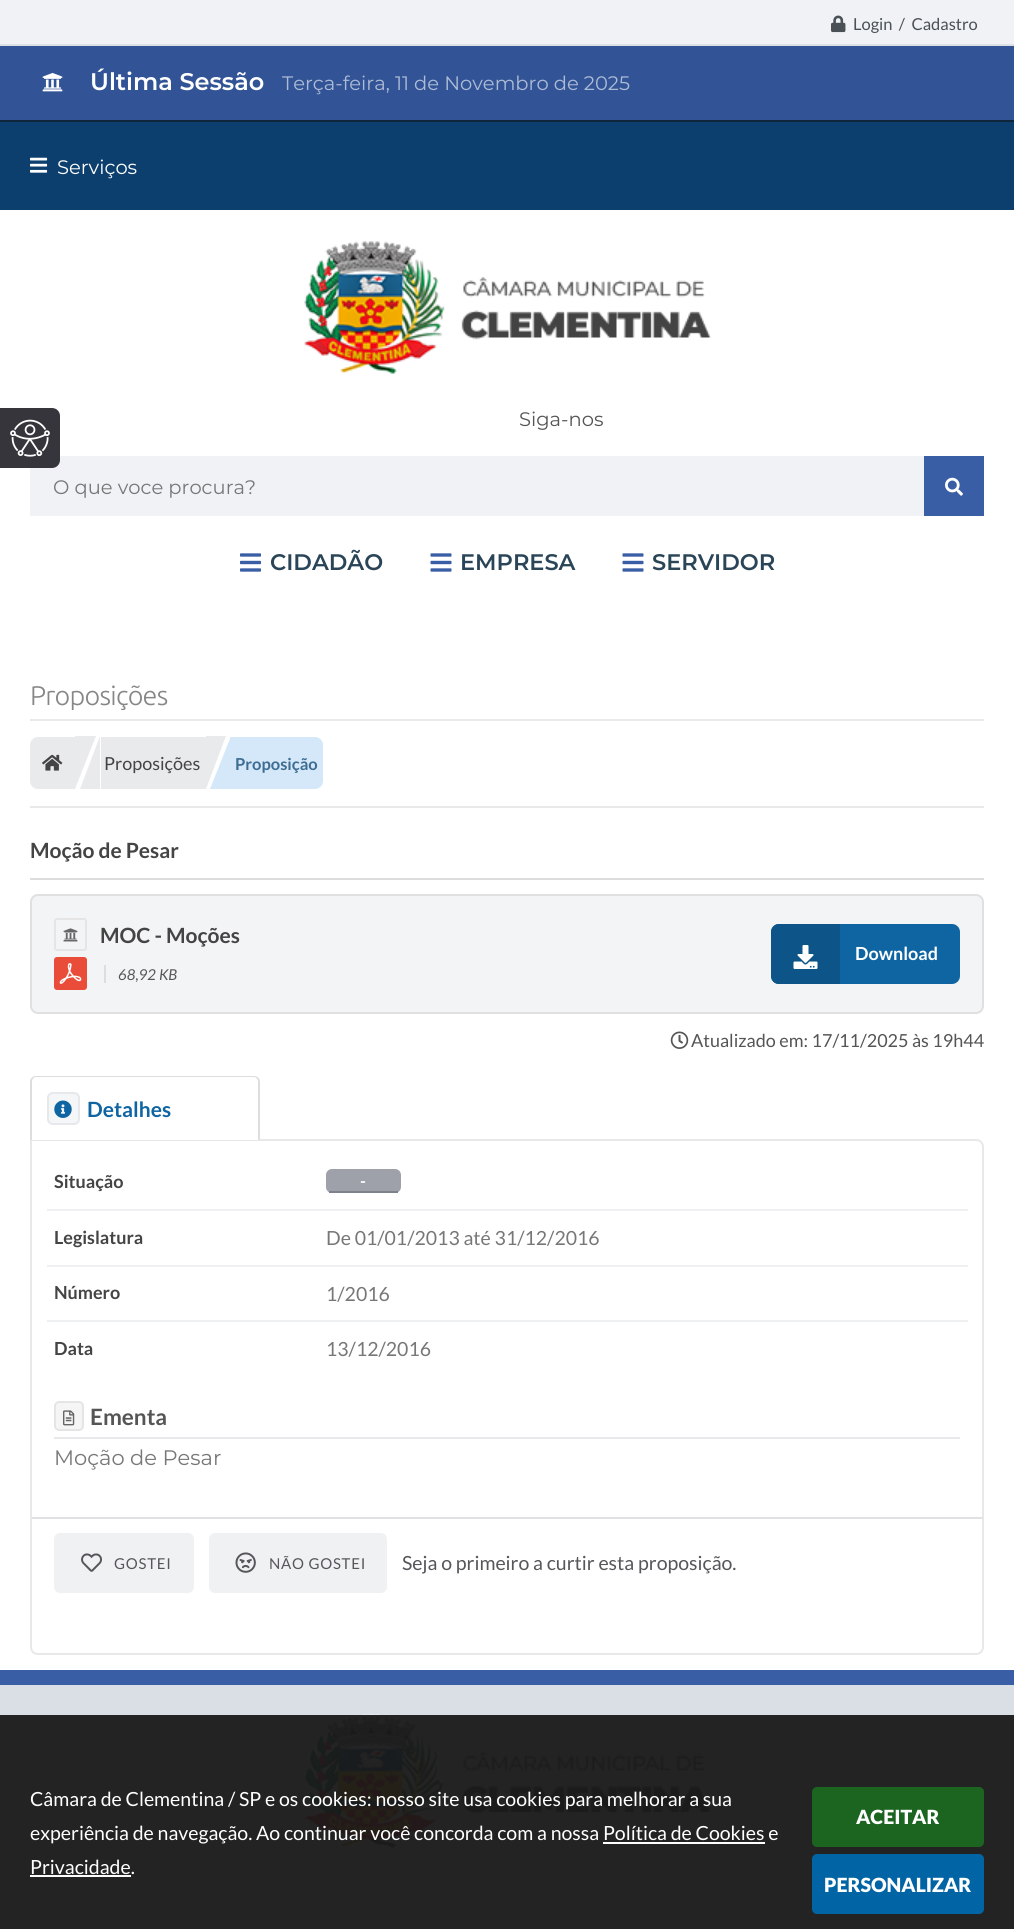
import math
import cairo



def draw_spaced(context, x, y, s, letter, word):
    context.move_to(x, y)
    for ch in s:
        context.show_text(ch)
        context.rel_move_to(letter + word * (ch == ' '), 0)


def rounded_rect(context, x, y, w, h, r):
    context.new_sub_path()
    for i, (u, v) in enumerate([(x + w - r, y + h - r), (x + r, y + h - r), (x + r, y + r), (x + w - r, y + r)]):
        context.arc(u, v, r, i * math.pi / 2, (i + 1) * math.pi / 2)
    context.close_path()


def draw_image(context, path, x, y, w, h):
    context.save()
    context.set_source_surface(cairo.ImageSurface.create_from_png(path), x, y)
    context.rectangle(x, y, w, h)
    context.fill()
    context.restore()


def draw(context):
    context.set_source_rgb(1, 1, 1)
    context.paint()
    context.set_source_rgb(240 / 255, 242 / 255, 245 / 255)
    context.rectangle(0, 0, 1014, 44)
    context.fill()
    context.set_source_rgb(221 / 255, 225 / 255, 229 / 255)
    context.rectangle(0, 44, 1014, 2)
    context.fill()
    draw_image(context, "images/1.png", 831, 15, 15, 18)
    context.set_source_rgb(50 / 255, 84 / 255, 151 / 255)
    context.rectangle(0, 46, 1014, 74)
    context.fill()
    draw_image(context, "images/2.png", 42, 73, 21, 19)
    context.set_source_rgb(13 / 255, 63 / 255, 110 / 255)
    context.rectangle(0, 122, 1014, 88)
    context.fill()
    context.set_source_rgb(15 / 255, 37 / 255, 58 / 255)
    context.rectangle(0, 120, 1014, 2)
    context.fill()
    draw_image(context, "images/3.png", 30, 157, 18, 16)
    draw_image(context, "images/4.png", 304, 241, 407, 133)
    context.set_source_rgb(240 / 255, 242 / 255, 245 / 255)
    context.rectangle(30, 456, 894, 60)
    context.fill()
    context.set_source_rgb(58 / 255, 94 / 255, 166 / 255)
    context.rectangle(924, 456, 60, 60)
    context.fill()
    draw_image(context, "images/5.png", 945, 477, 18, 19)
    draw_image(context, "images/6.png", 240, 553, 21, 19)
    draw_image(context, "images/7.png", 430, 553, 22, 19)
    draw_image(context, "images/7.png", 622, 553, 22, 19)
    context.set_source_rgb(35 / 255, 35 / 255, 35 / 255)
    context.rectangle(0, 1715, 1014, 214)
    context.fill()
    context.set_source_rgb(218 / 255, 223 / 255, 230 / 255)
    context.rectangle(0, 1685, 1014, 30)
    context.fill()
    draw_image(context, "images/18.png", 303, 1714, 408, 136)
    context.set_source_rgb(1, 1, 1)
    context.rectangle(603, 1842, 162, 2)
    context.fill()
    context.rectangle(30, 1875, 101, 2)
    context.fill()
    context.set_source_rgb(27 / 255, 101 / 255, 32 / 255)
    rounded_rect(context, 812, 1787, 172, 60, 5)
    context.fill()
    context.set_source_rgb(1 / 255, 100 / 255, 164 / 255)
    rounded_rect(context, 812, 1854, 172, 60, 5)
    context.fill()
    context.set_source_rgb(53 / 255, 53 / 255, 59 / 255)
    context.new_path()
    context.move_to(0, 408)
    context.line_to(52, 408)
    context.curve_to(56.5, 408, 60, 411.5, 60, 416)
    context.line_to(60, 460)
    context.curve_to(60, 464.5, 56.5, 468, 52, 468)
    context.line_to(0, 468)
    context.close_path()
    context.fill()
    draw_image(context, "images/8.png", 10, 419, 40, 38)
    context.set_source_rgb(233 / 255, 233 / 255, 233 / 255)
    context.rectangle(30, 719, 954, 2)
    context.fill()
    context.rectangle(30, 806, 954, 2)
    context.fill()
    context.set_source_rgb(233 / 255, 234 / 255, 236 / 255)
    context.new_path()
    context.move_to(38, 737)
    context.line_to(75, 737)
    context.line_to(75, 789)
    context.line_to(38, 789)
    context.curve_to(33.5, 789, 30, 785.5, 30, 781)
    context.line_to(30, 745)
    context.curve_to(30, 740.5, 33.5, 737, 38, 737)
    context.close_path()
    context.fill()
    draw_image(context, "images/9.png", 42, 754, 21, 17)
    context.new_path()
    context.move_to(75, 736)
    context.line_to(96, 736)
    context.line_to(75, 789)
    context.close_path()
    context.fill()
    context.rectangle(101, 737, 105, 52)
    context.fill()
    context.new_path()
    context.move_to(100, 789)
    context.line_to(80, 789)
    context.line_to(100, 736)
    context.close_path()
    context.fill()
    context.new_path()
    context.move_to(206, 736)
    context.line_to(226, 736)
    context.line_to(206, 789)
    context.close_path()
    context.fill()
    context.set_source_rgb(212 / 255, 232 / 255, 249 / 255)
    context.new_path()
    context.move_to(231, 737)
    context.line_to(315, 737)
    context.curve_to(319.5, 737, 323, 740.5, 323, 745)
    context.line_to(323, 781)
    context.curve_to(323, 785.5, 319.5, 789, 315, 789)
    context.line_to(231, 789)
    context.close_path()
    context.fill()
    context.new_path()
    context.move_to(231, 789)
    context.line_to(210, 789)
    context.line_to(231, 736)
    context.close_path()
    context.fill()
    context.set_source_rgb(221 / 255, 221 / 255, 221 / 255)
    context.rectangle(30, 878, 954, 2)
    context.fill()
    context.set_source_rgb(243 / 255, 244 / 255, 246 / 255)
    rounded_rect(context, 31, 895, 952, 118, 7)
    context.fill_preserve()
    context.set_source_rgb(224 / 255, 224 / 255, 224 / 255)
    context.stroke()
    rounded_rect(context, 55, 919, 31, 31, 2)
    context.set_source_rgb(229 / 255, 229 / 255, 229 / 255)
    context.stroke()
    draw_image(context, "images/10.png", 63, 928, 15, 14)
    draw_image(context, "images/11.png", 54, 957, 33, 33)
    context.set_source_rgb(221 / 255, 221 / 255, 221 / 255)
    context.rectangle(104, 965, 2, 18)
    context.fill()
    context.set_source_rgb(15 / 255, 101 / 255, 162 / 255)
    rounded_rect(context, 771, 924, 189, 60, 8)
    context.fill()
    context.set_source_rgb(13 / 255, 85 / 255, 136 / 255)
    context.new_path()
    context.move_to(779, 924)
    context.line_to(840, 924)
    context.line_to(840, 984)
    context.line_to(779, 984)
    context.curve_to(774.5, 984, 771, 980.5, 771, 976)
    context.line_to(771, 932)
    context.curve_to(771, 927.5, 774.5, 924, 779, 924)
    context.close_path()
    context.fill()
    draw_image(context, "images/12.png", 793, 945, 25, 24)
    draw_image(context, "images/13.png", 670, 1031, 19, 18)
    context.new_path()
    context.move_to(31, 1140)
    context.line_to(976, 1140)
    context.curve_to(980, 1140, 983, 1143, 983, 1147)
    context.line_to(983, 1647)
    context.curve_to(983, 1651, 980, 1654, 976, 1654)
    context.line_to(38, 1654)
    context.curve_to(34, 1654, 31, 1651, 31, 1647)
    context.close_path()
    context.set_source_rgb(232 / 255, 232 / 255, 232 / 255)
    context.stroke()
    context.set_source_rgb(1, 1, 1)
    context.new_path()
    context.move_to(36, 1076)
    context.line_to(254, 1076)
    context.curve_to(257.5, 1076, 260, 1078.5, 260, 1082)
    context.line_to(260, 1140)
    context.line_to(30, 1140)
    context.line_to(30, 1082)
    context.curve_to(30, 1078.5, 32.5, 1076, 36, 1076)
    context.close_path()
    context.fill()
    context.set_source_rgb(221 / 255, 221 / 255, 221 / 255)
    context.set_fill_rule(cairo.FillRule.EVEN_ODD)
    context.new_path()
    context.move_to(36, 1076)
    context.line_to(254, 1076)
    context.curve_to(257, 1076, 260, 1078, 260, 1082)
    context.line_to(260, 1140)
    context.line_to(30, 1140)
    context.line_to(30, 1082)
    context.curve_to(30, 1078, 33, 1076, 36, 1076)
    context.close_path()
    context.move_to(36, 1077)
    context.line_to(254, 1077)
    context.curve_to(256, 1077, 258, 1079, 258, 1082)
    context.line_to(258, 1140)
    context.line_to(32, 1140)
    context.line_to(32, 1082)
    context.curve_to(32, 1079, 34, 1077, 36, 1077)
    context.close_path()
    context.fill()
    context.set_source_rgb(245 / 255, 246 / 255, 248 / 255)
    rounded_rect(context, 48, 1093, 31, 31, 5)
    context.fill_preserve()
    context.set_source_rgb(230 / 255, 232 / 255, 236 / 255)
    context.stroke()
    draw_image(context, "images/14.png", 54, 1100, 18, 18)
    context.set_source_rgb(238 / 255, 240 / 255, 241 / 255)
    context.rectangle(47, 1209, 921, 2)
    context.fill()
    context.set_source_rgb(158 / 255, 161 / 255, 170 / 255)
    rounded_rect(context, 326, 1169, 75, 24, 6)
    context.fill()
    context.set_source_rgb(125 / 255, 129 / 255, 140 / 255)
    context.rectangle(329, 1191, 69, 2)
    context.fill()
    context.set_source_rgb(238 / 255, 240 / 255, 241 / 255)
    context.rectangle(47, 1265, 921, 2)
    context.fill()
    context.rectangle(47, 1320, 921, 2)
    context.fill()
    context.set_source_rgb(231 / 255, 233 / 255, 235 / 255)
    context.rectangle(54, 1437, 906, 2)
    context.fill()
    context.set_source_rgb(245 / 255, 245 / 255, 245 / 255)
    rounded_rect(context, 55, 1402, 28, 28, 4)
    context.fill_preserve()
    context.set_source_rgb(229 / 255, 229 / 255, 229 / 255)
    context.stroke()
    draw_image(context, "images/15.png", 63, 1410, 12, 16)
    context.set_source_rgb(223 / 255, 225 / 255, 228 / 255)
    context.rectangle(32, 1517, 951, 2)
    context.fill()
    context.set_source_rgb(240 / 255, 241 / 255, 242 / 255)
    rounded_rect(context, 54, 1533, 140, 60, 6)
    context.fill()
    draw_image(context, "images/16.png", 81, 1553, 21, 19)
    rounded_rect(context, 209, 1533, 178, 60, 6)
    context.fill()
    draw_image(context, "images/17.png", 235, 1552, 21, 21)
    context.set_source_rgb(58 / 255, 94 / 255, 166 / 255)
    context.rectangle(0, 1670, 1014, 15)
    context.fill()
    context.select_font_face("Lato")
    context.set_font_size(16.5)
    context.set_source_rgb(73 / 255, 81 / 255, 86 / 255)
    context.move_to(853, 30)
    context.show_text("Login  /  Cadastro")
    context.select_font_face("Montserrat SemiBold")
    context.set_font_size(24)
    context.set_source_rgb(1, 1, 1)
    context.move_to(90, 90)
    context.show_text("Última Sessão")
    context.select_font_face("Montserrat")
    context.set_font_size(19.5)
    context.set_source_rgb(173 / 255, 187 / 255, 213 / 255)
    context.move_to(282, 90)
    context.show_text("Terça-feira, 11 de Novembro de 2025")
    context.set_source_rgb(1, 1, 1)
    context.move_to(57, 174)
    context.show_text("Serviços")
    context.set_source_rgb(85 / 255, 85 / 255, 85 / 255)
    context.move_to(519, 426)
    context.show_text("Siga-nos")
    context.set_source_rgb(119 / 255, 119 / 255, 119 / 255)
    context.move_to(53, 494)
    context.show_text("O que voce procura?")
    context.select_font_face("Montserrat SemiBold")
    context.set_font_size(22.5)
    context.set_source_rgb(42 / 255, 69 / 255, 88 / 255)
    context.move_to(270, 570)
    context.show_text("CIDADÃO")
    context.move_to(460, 570)
    context.show_text("EMPRESA")
    context.move_to(652, 570)
    context.show_text("SERVIDOR")
    context.select_font_face("Lato")
    context.set_font_size(19.5)
    context.set_source_rgb(1, 1, 1)
    context.move_to(30, 1806)
    context.show_text("Câmara de Clementina / SP e os cookies: nosso site usa cookies para melhorar a sua")
    context.move_to(30, 1840)
    context.show_text("experiência de navegação. Ao continuar você concorda com a nossa Política de Cookies e")
    context.move_to(30, 1874)
    context.show_text("Privacidade.")
    context.select_font_face("Lato Black")
    context.move_to(856, 1824)
    context.show_text("ACEITAR")
    context.move_to(824, 1892)
    context.show_text("PERSONALIZAR")
    context.select_font_face("Ubuntu Light")
    context.set_font_size(27)
    context.set_source_rgb(134 / 255, 134 / 255, 134 / 255)
    draw_spaced(context, 30, 705, "Proposições", -0.75, 0)
    context.select_font_face("Lato")
    context.set_font_size(18)
    context.set_source_rgb(68 / 255, 68 / 255, 68 / 255)
    context.move_to(104, 770)
    context.show_text("Proposições")
    context.select_font_face("Lato", cairo.FontSlant.NORMAL, cairo.FontWeight.BOLD)
    context.set_font_size(16.5)
    context.set_source_rgb(61 / 255, 109 / 255, 146 / 255)
    context.move_to(235, 770)
    context.show_text("Proposição")
    context.set_font_size(21)
    context.set_source_rgb(68 / 255, 68 / 255, 68 / 255)
    context.move_to(30, 858)
    context.show_text("Moção de Pesar")
    context.move_to(100, 943)
    context.show_text("MOC - Moções")
    context.select_font_face("Lato", cairo.FontSlant.ITALIC)
    context.set_font_size(15)
    context.set_source_rgb(85 / 255, 85 / 255, 85 / 255)
    context.move_to(118, 980)
    context.show_text("68,92 KB")
    context.select_font_face("Lato", cairo.FontSlant.NORMAL, cairo.FontWeight.BOLD)
    context.set_font_size(18)
    context.set_source_rgb(1, 1, 1)
    context.move_to(855, 960)
    context.show_text("Download")
    context.select_font_face("Lato")
    context.set_source_rgb(85 / 255, 85 / 255, 85 / 255)
    context.move_to(691, 1047)
    context.show_text("Atualizado em: 17/11/2025 às 19h44")
    context.select_font_face("Lato", cairo.FontSlant.NORMAL, cairo.FontWeight.BOLD)
    context.set_font_size(21)
    context.set_source_rgb(15 / 255, 101 / 255, 162 / 255)
    context.move_to(87, 1117)
    context.show_text("Detalhes")
    context.set_font_size(18)
    context.set_source_rgb(68 / 255, 68 / 255, 68 / 255)
    context.move_to(54, 1188)
    context.show_text("Situação")
    context.set_font_size(16.5)
    context.set_source_rgb(1, 1, 1)
    context.move_to(360, 1187)
    context.show_text("-")
    context.set_font_size(18)
    context.set_source_rgb(68 / 255, 68 / 255, 68 / 255)
    context.move_to(54, 1244)
    context.show_text("Legislatura")
    context.select_font_face("Lato")
    context.set_font_size(19.5)
    context.set_source_rgb(119 / 255, 119 / 255, 119 / 255)
    context.move_to(326, 1245)
    context.show_text("De 01/01/2013 até 31/12/2016")
    context.select_font_face("Lato", cairo.FontSlant.NORMAL, cairo.FontWeight.BOLD)
    context.set_font_size(18)
    context.set_source_rgb(68 / 255, 68 / 255, 68 / 255)
    context.move_to(54, 1299)
    context.show_text("Número")
    context.select_font_face("Lato")
    context.set_font_size(19.5)
    context.set_source_rgb(119 / 255, 119 / 255, 119 / 255)
    context.move_to(326, 1301)
    context.show_text("1/2016")
    context.select_font_face("Lato", cairo.FontSlant.NORMAL, cairo.FontWeight.BOLD)
    context.set_font_size(18)
    context.set_source_rgb(68 / 255, 68 / 255, 68 / 255)
    context.move_to(54, 1355)
    context.show_text("Data")
    context.select_font_face("Lato")
    context.set_font_size(19.5)
    context.set_source_rgb(119 / 255, 119 / 255, 119 / 255)
    context.move_to(326, 1356)
    context.show_text("13/12/2016")
    context.select_font_face("Lato", cairo.FontSlant.NORMAL, cairo.FontWeight.BOLD)
    context.set_font_size(22.5)
    context.set_source_rgb(85 / 255, 85 / 255, 85 / 255)
    context.move_to(90, 1425)
    context.show_text("Ementa")
    context.select_font_face("Montserrat")
    context.set_font_size(21)
    context.set_source_rgb(119 / 255, 119 / 255, 119 / 255)
    context.move_to(54, 1465)
    context.show_text("Moção de Pesar")
    context.select_font_face("Lato")
    context.set_font_size(15)
    context.set_source_rgb(86 / 255, 86 / 255, 91 / 255)
    draw_spaced(context, 114, 1569, "GOSTEI", 0.75, 0)
    draw_spaced(context, 269, 1569, "NÃO GOSTEI", 0.75, 0)
    context.set_font_size(19.5)
    context.move_to(402, 1570)
    context.show_text("Seja o primeiro a curtir esta proposição.")


surface = cairo.ImageSurface(cairo.Format.RGB24, 1014, 1929)
context = cairo.Context(surface)
options = cairo.FontOptions()
options.set_hint_metrics(cairo.HintMetrics.OFF)
options.set_hint_style(cairo.HintStyle.NONE)
context.set_font_options(options)
context.set_miter_limit(4)
draw(context)
surface.write_to_png("out.png")
